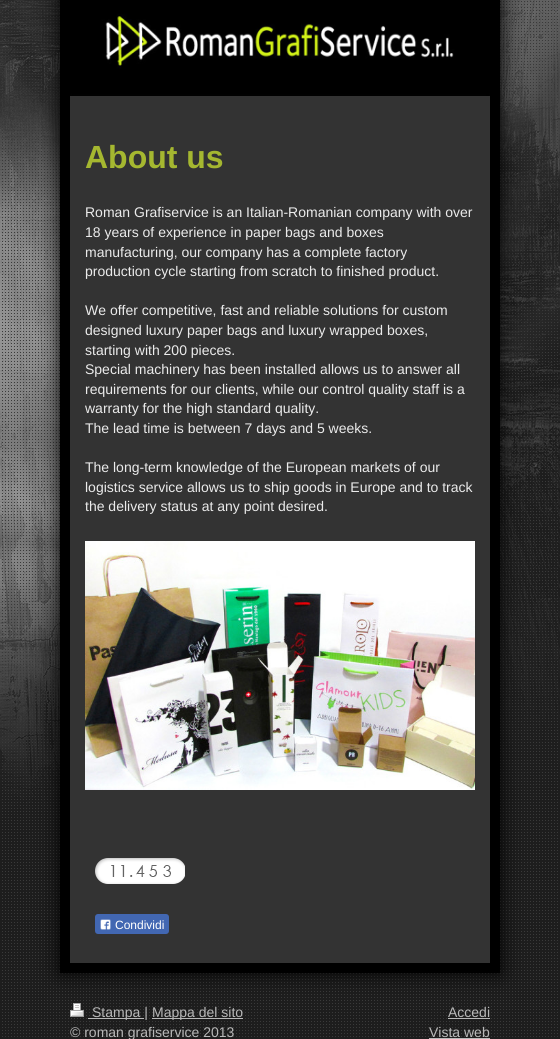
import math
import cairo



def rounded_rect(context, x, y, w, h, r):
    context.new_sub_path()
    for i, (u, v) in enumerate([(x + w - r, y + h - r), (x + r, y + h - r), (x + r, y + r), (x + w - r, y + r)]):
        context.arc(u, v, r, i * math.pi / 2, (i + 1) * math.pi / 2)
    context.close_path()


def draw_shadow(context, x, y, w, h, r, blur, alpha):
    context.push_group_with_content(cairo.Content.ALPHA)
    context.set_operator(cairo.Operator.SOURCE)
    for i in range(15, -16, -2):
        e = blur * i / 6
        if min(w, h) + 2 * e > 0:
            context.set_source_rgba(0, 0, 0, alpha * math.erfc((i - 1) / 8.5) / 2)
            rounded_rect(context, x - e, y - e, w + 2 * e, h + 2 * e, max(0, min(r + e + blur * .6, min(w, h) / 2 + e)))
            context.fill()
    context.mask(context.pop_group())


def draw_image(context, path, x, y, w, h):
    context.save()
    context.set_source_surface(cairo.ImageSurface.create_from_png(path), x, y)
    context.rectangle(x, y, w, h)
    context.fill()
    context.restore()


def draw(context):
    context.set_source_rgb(1, 1, 1)
    context.paint()
    draw_image(context, "images/1.png", 0, 0, 560, 1039)
    context.set_source_rgb(0, 0, 0)
    draw_shadow(context, 60, -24, 440, 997, 0, 10, 1)
    context.set_source_rgb(0, 0, 0)
    context.rectangle(60, 0, 440, 973)
    context.fill()
    draw_image(context, "images/2.png", 70, 0, 420, 96)
    context.set_source_rgb(51 / 255, 51 / 255, 51 / 255)
    context.rectangle(70, 96, 420, 867)
    context.fill()
    draw_image(context, "images/3.png", 85, 541, 390, 249)
    draw_image(context, "images/4.png", 95, 858, 14, 26)
    draw_image(context, "images/5.png", 109, 858, 10, 26)
    draw_image(context, "images/5.png", 119, 858, 10, 26)
    draw_image(context, "images/6.png", 129, 858, 5, 26)
    draw_image(context, "images/7.png", 134, 858, 13, 26)
    draw_image(context, "images/8.png", 147, 858, 14, 26)
    draw_image(context, "images/9.png", 161, 858, 12, 26)
    draw_image(context, "images/10.png", 173, 858, 12, 26)
    context.set_source_rgb(66 / 255, 103 / 255, 178 / 255)
    rounded_rect(context, 95, 914, 74, 20, 3)
    context.fill()
    draw_image(context, "images/11.png", 100, 919, 11, 11)
    draw_image(context, "images/12.png", 70, 1003, 14, 14)
    context.set_source_rgb(184 / 255, 184 / 255, 184 / 255)
    context.rectangle(88, 1018, 56, 1)
    context.fill()
    context.rectangle(152, 1018, 91, 1)
    context.fill()
    context.rectangle(448, 1018, 42, 1)
    context.fill()
    context.rectangle(429, 1038, 61, 1)
    context.fill()
    context.select_font_face("Liberation Sans", cairo.FontSlant.NORMAL, cairo.FontWeight.BOLD)
    context.set_font_size(32)
    context.set_source_rgb(165 / 255, 183 / 255, 48 / 255)
    context.move_to(85, 168)
    context.show_text("About us")
    context.select_font_face("Liberation Sans")
    context.set_font_size(14)
    context.set_source_rgb(235 / 255, 235 / 255, 235 / 255)
    context.move_to(85, 217)
    context.show_text("Roman Grafiservice is an Italian-Romanian company with over")
    context.move_to(85, 237)
    context.show_text("18 years of experience in paper bags and boxes")
    context.move_to(85, 257)
    context.show_text("manufacturing, our company has a complete factory")
    context.move_to(85, 276)
    context.show_text("production cycle starting from scratch to finished product.")
    context.move_to(85, 315)
    context.show_text("We offer competitive, fast and reliable solutions for custom")
    context.move_to(85, 335)
    context.show_text("designed luxury paper bags and luxury wrapped boxes,")
    context.move_to(85, 355)
    context.show_text("starting with 200 pieces.")
    context.move_to(85, 374)
    context.show_text("Special machinery has been installed allows us to answer all")
    context.move_to(85, 394)
    context.show_text("requirements for our clients, while our control quality staff is a")
    context.move_to(85, 413)
    context.show_text("warranty for the high standard quality.")
    context.move_to(85, 433)
    context.show_text("The lead time is between 7 days and 5 weeks.")
    context.move_to(85, 472)
    context.show_text("The long-term knowledge of the European markets of our")
    context.move_to(85, 492)
    context.show_text("logistics service allows us to ship goods in Europe and to track")
    context.move_to(85, 511)
    context.show_text("the delivery status at any point desired.")
    context.set_font_size(12)
    context.set_source_rgb(1, 1, 1)
    context.move_to(115, 929)
    context.show_text("Condividi")
    context.set_font_size(14)
    context.set_source_rgb(184 / 255, 184 / 255, 184 / 255)
    context.move_to(92, 1017)
    context.show_text("Stampa |")
    context.move_to(152, 1017)
    context.show_text("Mappa del sito")
    context.move_to(70, 1037)
    context.show_text("© roman grafiservice 2013")
    context.move_to(448, 1017)
    context.show_text("Accedi")
    context.move_to(429, 1037)
    context.show_text("Vista web")


surface = cairo.ImageSurface(cairo.Format.RGB24, 560, 1039)
context = cairo.Context(surface)
options = cairo.FontOptions()
options.set_hint_metrics(cairo.HintMetrics.OFF)
options.set_hint_style(cairo.HintStyle.NONE)
context.set_font_options(options)
context.set_miter_limit(4)
draw(context)
surface.write_to_png("out.png")
